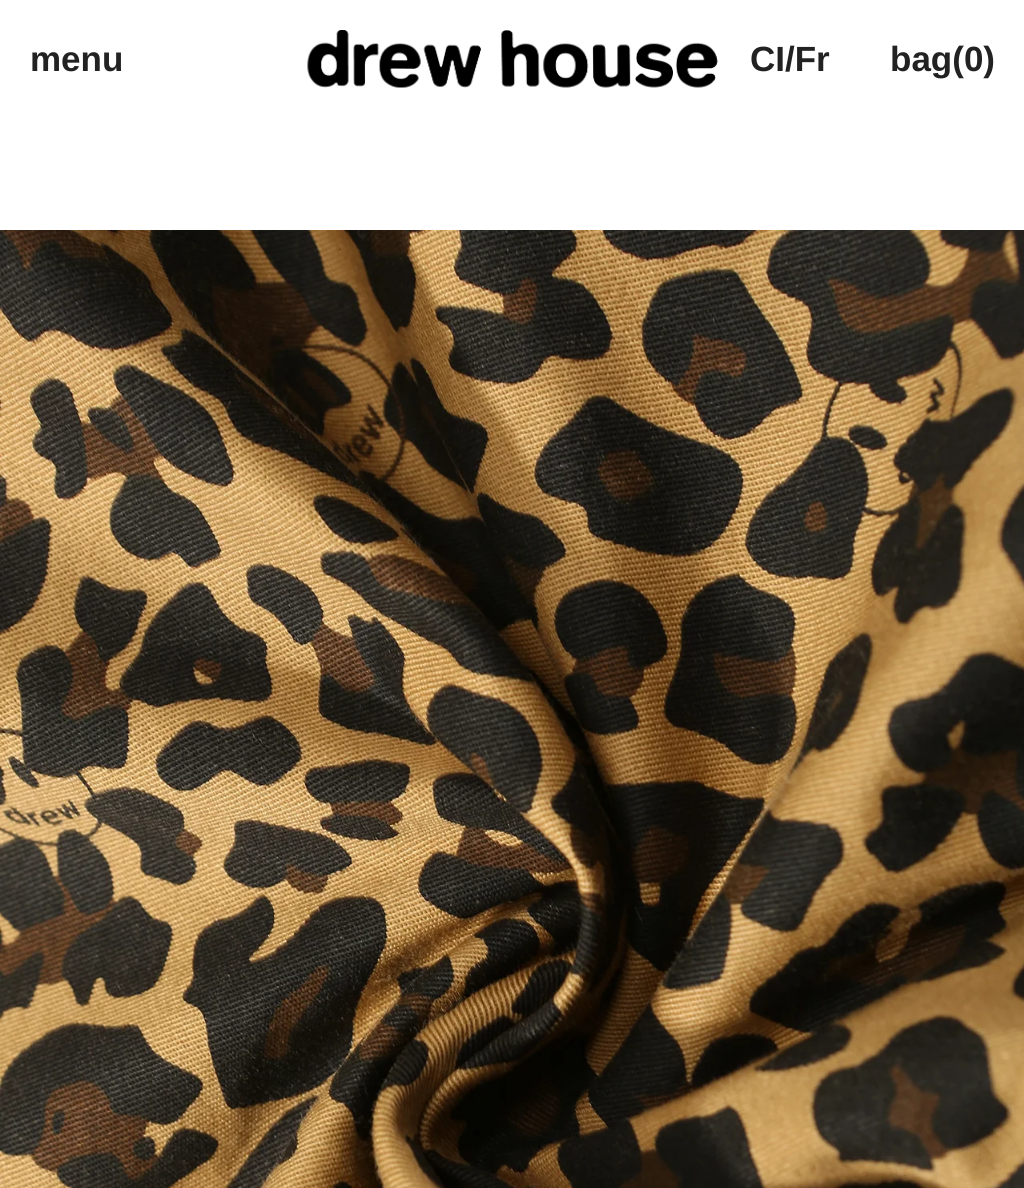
import math
import cairo



def draw_image(context, path, x, y, w, h):
    context.save()
    context.set_source_surface(cairo.ImageSurface.create_from_png(path), x, y)
    context.rectangle(x, y, w, h)
    context.fill()
    context.restore()


def draw(context):
    context.set_source_rgb(1, 1, 1)
    context.paint()
    draw_image(context, "images/1.png", 307, 30, 411, 58)
    draw_image(context, "images/2.png", 0, 230, 1024, 958)
    context.select_font_face("Liberation Sans", cairo.FontSlant.NORMAL, cairo.FontWeight.BOLD)
    context.set_font_size(35)
    context.set_source_rgb(34 / 255, 34 / 255, 34 / 255)
    context.move_to(30, 71)
    context.show_text("menu")
    context.move_to(750, 71)
    context.show_text("CI/Fr")
    context.move_to(890, 71)
    context.show_text("bag(0)")


surface = cairo.ImageSurface(cairo.Format.RGB24, 1024, 1188)
context = cairo.Context(surface)
options = cairo.FontOptions()
options.set_hint_metrics(cairo.HintMetrics.OFF)
options.set_hint_style(cairo.HintStyle.NONE)
context.set_font_options(options)
context.set_miter_limit(4)
draw(context)
surface.write_to_png("out.png")
